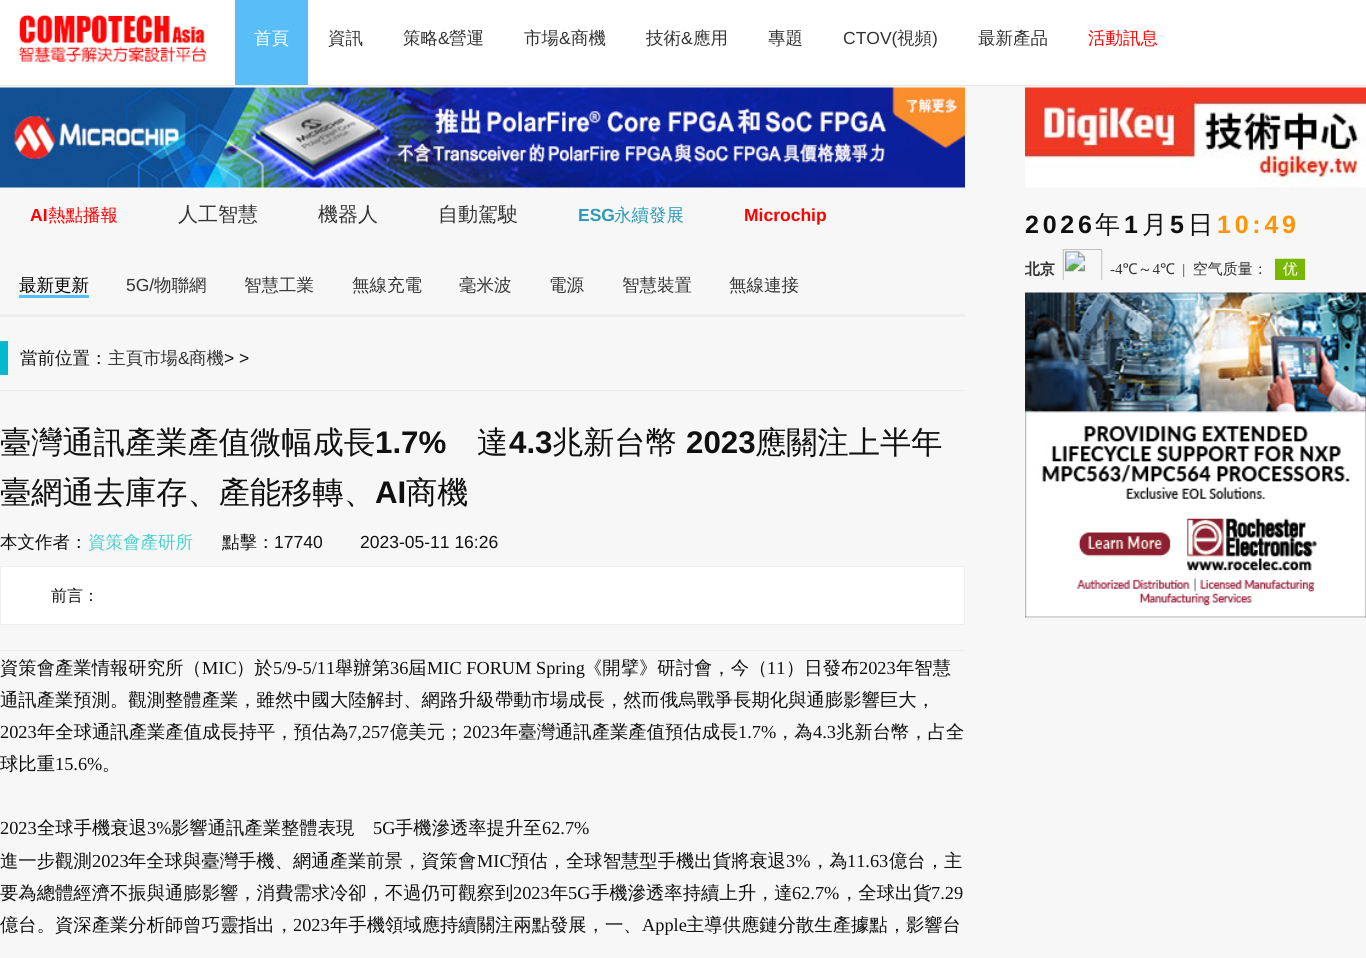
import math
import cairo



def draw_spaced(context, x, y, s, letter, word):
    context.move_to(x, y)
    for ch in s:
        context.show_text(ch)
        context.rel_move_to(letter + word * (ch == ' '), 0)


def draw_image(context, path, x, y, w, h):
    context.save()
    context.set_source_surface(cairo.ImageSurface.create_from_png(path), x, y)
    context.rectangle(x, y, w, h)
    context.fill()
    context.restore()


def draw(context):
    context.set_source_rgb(247 / 255, 247 / 255, 247 / 255)
    context.paint()
    context.set_source_rgb(1, 1, 1)
    context.rectangle(0, 0, 1366, 85)
    context.fill()
    context.set_source_rgb(231 / 255, 231 / 255, 231 / 255)
    context.rectangle(0, 85, 1366, 1)
    context.fill()
    draw_image(context, "images/1.png", 18, 14, 189, 49)
    context.set_source_rgb(89 / 255, 189 / 255, 247 / 255)
    context.rectangle(235, 0, 73, 85)
    context.fill()
    draw_image(context, "images/2.png", 0, 87, 965, 101)
    context.set_source_rgb(238 / 255, 238 / 255, 238 / 255)
    context.rectangle(0, 314, 965, 3)
    context.fill()
    context.set_source_rgb(89 / 255, 189 / 255, 247 / 255)
    context.rectangle(19, 295, 70, 3)
    context.fill()
    context.set_source_rgb(238 / 255, 238 / 255, 238 / 255)
    context.rectangle(0, 390, 965, 1)
    context.fill()
    context.set_source_rgb(3 / 255, 183 / 255, 207 / 255)
    context.rectangle(0, 341, 8, 34)
    context.fill()
    context.set_source_rgb(238 / 255, 238 / 255, 238 / 255)
    context.rectangle(0, 650, 965, 1)
    context.fill()
    context.set_source_rgb(1, 1, 1)
    context.rectangle(0.5, 566.5, 964, 58)
    context.fill_preserve()
    context.set_source_rgb(238 / 255, 238 / 255, 238 / 255)
    context.set_line_width(1)
    context.stroke()
    draw_image(context, "images/3.png", 1025, 87, 341, 101)
    draw_image(context, "images/4.png", 1025, 249, 280, 31)
    draw_image(context, "images/5.png", 1025, 292, 341, 326)
    context.select_font_face("WenQuanYi Zen Hei Medium")
    context.set_font_size(17.5)
    context.set_source_rgb(1, 1, 1)
    context.move_to(254, 44)
    context.show_text("首頁")
    context.set_source_rgb(51 / 255, 51 / 255, 51 / 255)
    context.move_to(328, 44)
    context.show_text("資訊")
    context.move_to(403, 44)
    context.show_text("策略")
    context.select_font_face("Liberation Sans")
    context.move_to(438, 44)
    context.show_text("&")
    context.select_font_face("WenQuanYi Zen Hei Medium")
    context.move_to(449, 44)
    context.show_text("營運")
    context.move_to(524, 44)
    context.show_text("市場")
    context.select_font_face("Liberation Sans")
    context.move_to(559, 44)
    context.show_text("&")
    context.select_font_face("WenQuanYi Zen Hei Medium")
    context.move_to(571, 44)
    context.show_text("商機")
    context.move_to(646, 44)
    context.show_text("技術")
    context.select_font_face("Liberation Sans")
    context.move_to(681, 44)
    context.show_text("&")
    context.select_font_face("WenQuanYi Zen Hei Medium")
    context.move_to(693, 44)
    context.show_text("應用")
    context.move_to(768, 44)
    context.show_text("專題")
    context.select_font_face("Liberation Sans")
    context.move_to(843, 44)
    context.show_text("CTOV(")
    context.select_font_face("WenQuanYi Zen Hei Medium")
    context.move_to(897, 44)
    context.show_text("視頻")
    context.select_font_face("Liberation Sans")
    context.move_to(932, 44)
    context.show_text(")")
    context.select_font_face("WenQuanYi Zen Hei Medium")
    context.move_to(978, 44)
    context.show_text("最新產品")
    context.set_source_rgb(1, 0, 0)
    context.move_to(1088, 44)
    context.show_text("活動訊息")
    context.select_font_face("Liberation Sans", cairo.FontSlant.NORMAL, cairo.FontWeight.BOLD)
    context.move_to(30, 221)
    context.show_text("AI")
    context.select_font_face("WenQuanYi Zen Hei Medium")
    context.move_to(48, 221)
    context.show_text("熱點播報")
    context.set_font_size(20)
    context.set_source_rgb(51 / 255, 51 / 255, 51 / 255)
    context.move_to(178, 221)
    context.show_text("人工智慧")
    context.move_to(318, 221)
    context.show_text("機器人")
    context.move_to(438, 221)
    context.show_text("自動駕駛")
    context.select_font_face("Liberation Sans", cairo.FontSlant.NORMAL, cairo.FontWeight.BOLD)
    context.set_font_size(17.5)
    context.set_source_rgb(44 / 255, 154 / 255, 183 / 255)
    context.move_to(578, 221)
    context.show_text("ESG")
    context.select_font_face("WenQuanYi Zen Hei Medium")
    context.move_to(614, 221)
    context.show_text("永續發展")
    context.select_font_face("Liberation Sans", cairo.FontSlant.NORMAL, cairo.FontWeight.BOLD)
    context.set_source_rgb(1, 0, 0)
    context.move_to(744, 221)
    context.show_text("Microchip")
    context.select_font_face("WenQuanYi Zen Hei Medium")
    context.set_source_rgb(0, 0, 0)
    context.move_to(19, 291)
    context.show_text("最新更新")
    context.select_font_face("Liberation Sans")
    context.set_source_rgb(51 / 255, 51 / 255, 51 / 255)
    context.move_to(126, 291)
    context.show_text("5G/")
    context.select_font_face("WenQuanYi Zen Hei Medium")
    context.move_to(154, 291)
    context.show_text("物聯網")
    context.move_to(244, 291)
    context.show_text("智慧工業")
    context.move_to(352, 291)
    context.show_text("無線充電")
    context.move_to(459, 291)
    context.show_text("毫米波")
    context.move_to(549, 291)
    context.show_text("電源")
    context.move_to(622, 291)
    context.show_text("智慧裝置")
    context.move_to(729, 291)
    context.show_text("無線連接")
    context.set_source_rgb(16 / 255, 16 / 255, 16 / 255)
    context.move_to(20, 364)
    context.show_text("當前位置：")
    context.set_source_rgb(51 / 255, 51 / 255, 51 / 255)
    context.move_to(108, 364)
    context.show_text("主頁市場")
    context.select_font_face("Liberation Sans")
    context.move_to(178, 364)
    context.show_text("&")
    context.select_font_face("WenQuanYi Zen Hei Medium")
    context.move_to(189, 364)
    context.show_text("商機")
    context.select_font_face("Liberation Sans")
    context.set_source_rgb(16 / 255, 16 / 255, 16 / 255)
    context.move_to(224, 364)
    context.show_text("> >")
    context.select_font_face("WenQuanYi Zen Hei Medium")
    context.set_font_size(31.25)
    context.move_to(0, 453)
    context.show_text("臺灣通訊產業產值微幅成長")
    context.select_font_face("Liberation Sans", cairo.FontSlant.NORMAL, cairo.FontWeight.BOLD)
    context.move_to(375, 453)
    context.show_text("1.7%")
    context.select_font_face("WenQuanYi Zen Hei Medium")
    context.move_to(477, 453)
    context.show_text("達")
    context.select_font_face("Liberation Sans", cairo.FontSlant.NORMAL, cairo.FontWeight.BOLD)
    context.move_to(509, 453)
    context.show_text("4.3")
    context.select_font_face("WenQuanYi Zen Hei Medium")
    context.move_to(552, 453)
    context.show_text("兆新台幣")
    context.select_font_face("Liberation Sans", cairo.FontSlant.NORMAL, cairo.FontWeight.BOLD)
    context.move_to(686, 453)
    context.show_text("2023")
    context.select_font_face("WenQuanYi Zen Hei Medium")
    context.move_to(755, 453)
    context.show_text("應關注上半年")
    context.move_to(0, 503)
    context.show_text("臺網通去庫存、產能移轉、")
    context.select_font_face("Liberation Sans", cairo.FontSlant.NORMAL, cairo.FontWeight.BOLD)
    context.move_to(375, 503)
    context.show_text("AI")
    context.select_font_face("WenQuanYi Zen Hei Medium")
    context.move_to(406, 503)
    context.show_text("商機")
    context.set_font_size(17.5)
    context.move_to(0, 548)
    context.show_text("本文作者：")
    context.set_source_rgb(72 / 255, 209 / 255, 204 / 255)
    context.move_to(88, 548)
    context.show_text("資策會產研所")
    context.set_source_rgb(16 / 255, 16 / 255, 16 / 255)
    context.move_to(222, 548)
    context.show_text("點擊：")
    context.select_font_face("Liberation Sans")
    context.move_to(274, 548)
    context.show_text("17740")
    context.move_to(360, 548)
    context.show_text("2023-05-11 16:26")
    context.select_font_face("WenQuanYi Zen Hei Medium")
    context.set_font_size(16)
    context.move_to(51, 601)
    context.show_text("前言：")
    context.set_font_size(18.33)
    context.move_to(0, 674)
    context.show_text("資策會產業情報研究所（")
    context.select_font_face("Liberation Serif")
    context.move_to(202, 674)
    context.show_text("MIC")
    context.select_font_face("WenQuanYi Zen Hei Medium")
    context.move_to(236, 674)
    context.show_text("）於")
    context.select_font_face("Liberation Serif")
    context.move_to(273, 674)
    context.show_text("5/9-5/11")
    context.select_font_face("WenQuanYi Zen Hei Medium")
    context.move_to(335, 674)
    context.show_text("舉辦第")
    context.select_font_face("Liberation Serif")
    context.move_to(390, 674)
    context.show_text("36")
    context.select_font_face("WenQuanYi Zen Hei Medium")
    context.move_to(408, 674)
    context.show_text("屆")
    context.select_font_face("Liberation Serif")
    context.move_to(427, 674)
    context.show_text("MIC FORUM Spring")
    context.select_font_face("WenQuanYi Zen Hei Medium")
    context.move_to(584, 674)
    context.show_text("《開擘》研討會，今（")
    context.select_font_face("Liberation Serif")
    context.move_to(767, 674)
    context.show_text("11")
    context.select_font_face("WenQuanYi Zen Hei Medium")
    context.move_to(786, 674)
    context.show_text("）日發布")
    context.select_font_face("Liberation Serif")
    context.move_to(859, 674)
    context.show_text("2023")
    context.select_font_face("WenQuanYi Zen Hei Medium")
    context.move_to(896, 674)
    context.show_text("年智慧")
    context.move_to(0, 706)
    context.show_text("通訊產業預測。觀測整體產業，雖然中國大陸解封、網路升級帶動市場成長，然而俄烏戰爭長期化與通膨影響巨大，")
    context.select_font_face("Liberation Serif")
    context.move_to(0, 738)
    context.show_text("2023")
    context.select_font_face("WenQuanYi Zen Hei Medium")
    context.move_to(37, 738)
    context.show_text("年全球通訊產業產值成長持平，預估為")
    context.select_font_face("Liberation Serif")
    context.move_to(348, 738)
    context.show_text("7,257")
    context.select_font_face("WenQuanYi Zen Hei Medium")
    context.move_to(390, 738)
    context.show_text("億美元；")
    context.select_font_face("Liberation Serif")
    context.move_to(463, 738)
    context.show_text("2023")
    context.select_font_face("WenQuanYi Zen Hei Medium")
    context.move_to(500, 738)
    context.show_text("年臺灣通訊產業產值預估成長")
    context.select_font_face("Liberation Serif")
    context.move_to(738, 738)
    context.show_text("1.7%")
    context.select_font_face("WenQuanYi Zen Hei Medium")
    context.move_to(776, 738)
    context.show_text("，為")
    context.select_font_face("Liberation Serif")
    context.move_to(813, 738)
    context.show_text("4.3")
    context.select_font_face("WenQuanYi Zen Hei Medium")
    context.move_to(836, 738)
    context.show_text("兆新台幣，占全")
    context.move_to(0, 770)
    context.show_text("球比重")
    context.select_font_face("Liberation Serif")
    context.move_to(55, 770)
    context.show_text("15.6%")
    context.select_font_face("WenQuanYi Zen Hei Medium")
    context.move_to(102, 770)
    context.show_text("。")
    context.select_font_face("Liberation Serif")
    context.move_to(0, 834)
    context.show_text("2023")
    context.select_font_face("WenQuanYi Zen Hei Medium")
    context.move_to(37, 834)
    context.show_text("全球手機衰退")
    context.select_font_face("Liberation Serif")
    context.move_to(147, 834)
    context.show_text("3%")
    context.select_font_face("WenQuanYi Zen Hei Medium")
    context.move_to(171, 834)
    context.show_text("影響通訊產業整體表現")
    context.select_font_face("Liberation Serif")
    context.move_to(373, 834)
    context.show_text("5G")
    context.select_font_face("WenQuanYi Zen Hei Medium")
    context.move_to(395, 834)
    context.show_text("手機滲透率提升至")
    context.select_font_face("Liberation Serif")
    context.move_to(542, 834)
    context.show_text("62.7%")
    context.select_font_face("WenQuanYi Zen Hei Medium")
    context.move_to(0, 867)
    context.show_text("進一步觀測")
    context.select_font_face("Liberation Serif")
    context.move_to(92, 867)
    context.show_text("2023")
    context.select_font_face("WenQuanYi Zen Hei Medium")
    context.move_to(128, 867)
    context.show_text("年全球與臺灣手機、網通產業前景，資策會")
    context.select_font_face("Liberation Serif")
    context.move_to(477, 867)
    context.show_text("MIC")
    context.select_font_face("WenQuanYi Zen Hei Medium")
    context.move_to(511, 867)
    context.show_text("預估，全球智慧型手機出貨將衰退")
    context.select_font_face("Liberation Serif")
    context.move_to(786, 867)
    context.show_text("3%")
    context.select_font_face("WenQuanYi Zen Hei Medium")
    context.move_to(811, 867)
    context.show_text("，為")
    context.select_font_face("Liberation Serif")
    context.move_to(847, 867)
    context.show_text("11.63")
    context.select_font_face("WenQuanYi Zen Hei Medium")
    context.move_to(889, 867)
    context.show_text("億台，主")
    context.move_to(0, 899)
    context.show_text("要為總體經濟不振與通膨影響，消費需求冷卻，不過仍可觀察到")
    context.select_font_face("Liberation Serif")
    context.move_to(513, 899)
    context.show_text("2023")
    context.select_font_face("WenQuanYi Zen Hei Medium")
    context.move_to(550, 899)
    context.show_text("年")
    context.select_font_face("Liberation Serif")
    context.move_to(568, 899)
    context.show_text("5G")
    context.select_font_face("WenQuanYi Zen Hei Medium")
    context.move_to(591, 899)
    context.show_text("手機滲透率持續上升，達")
    context.select_font_face("Liberation Serif")
    context.move_to(792, 899)
    context.show_text("62.7%")
    context.select_font_face("WenQuanYi Zen Hei Medium")
    context.move_to(840, 899)
    context.show_text("，全球出貨")
    context.select_font_face("Liberation Serif")
    context.move_to(931, 899)
    context.show_text("7.29")
    context.select_font_face("WenQuanYi Zen Hei Medium")
    context.move_to(0, 931)
    context.show_text("億台。資深產業分析師曾巧靈指出，")
    context.select_font_face("Liberation Serif")
    context.move_to(293, 931)
    context.show_text("2023")
    context.select_font_face("WenQuanYi Zen Hei Medium")
    context.move_to(330, 931)
    context.show_text("年手機領域應持續關注兩點發展，一、")
    context.select_font_face("Liberation Serif")
    context.move_to(642, 931)
    context.show_text("Apple")
    context.select_font_face("WenQuanYi Zen Hei Medium")
    context.move_to(686, 931)
    context.show_text("主導供應鏈分散生產據點，影響台")
    context.select_font_face("Liberation Sans", cairo.FontSlant.NORMAL, cairo.FontWeight.BOLD)
    context.set_font_size(25)
    draw_spaced(context, 1025, 233, "2026", 3.75, 0)
    context.select_font_face("WenQuanYi Zen Hei Medium")
    draw_spaced(context, 1095, 233, "年", 3.75, 0)
    context.select_font_face("Liberation Sans", cairo.FontSlant.NORMAL, cairo.FontWeight.BOLD)
    draw_spaced(context, 1124, 233, "1", 3.75, 0)
    context.select_font_face("WenQuanYi Zen Hei Medium")
    draw_spaced(context, 1142, 233, "月", 3.75, 0)
    context.select_font_face("Liberation Sans", cairo.FontSlant.NORMAL, cairo.FontWeight.BOLD)
    draw_spaced(context, 1170, 233, "5", 3.75, 0)
    context.select_font_face("WenQuanYi Zen Hei Medium")
    draw_spaced(context, 1188, 233, "日", 3.75, 0)
    context.select_font_face("Liberation Sans", cairo.FontSlant.NORMAL, cairo.FontWeight.BOLD)
    context.set_source_rgb(1, 148 / 255, 0)
    draw_spaced(context, 1217, 233, "10:49", 3.75, 0)


surface = cairo.ImageSurface(cairo.Format.RGB24, 1366, 958)
context = cairo.Context(surface)
options = cairo.FontOptions()
options.set_hint_metrics(cairo.HintMetrics.OFF)
options.set_hint_style(cairo.HintStyle.NONE)
context.set_font_options(options)
context.set_miter_limit(4)
draw(context)
surface.write_to_png("out.png")
